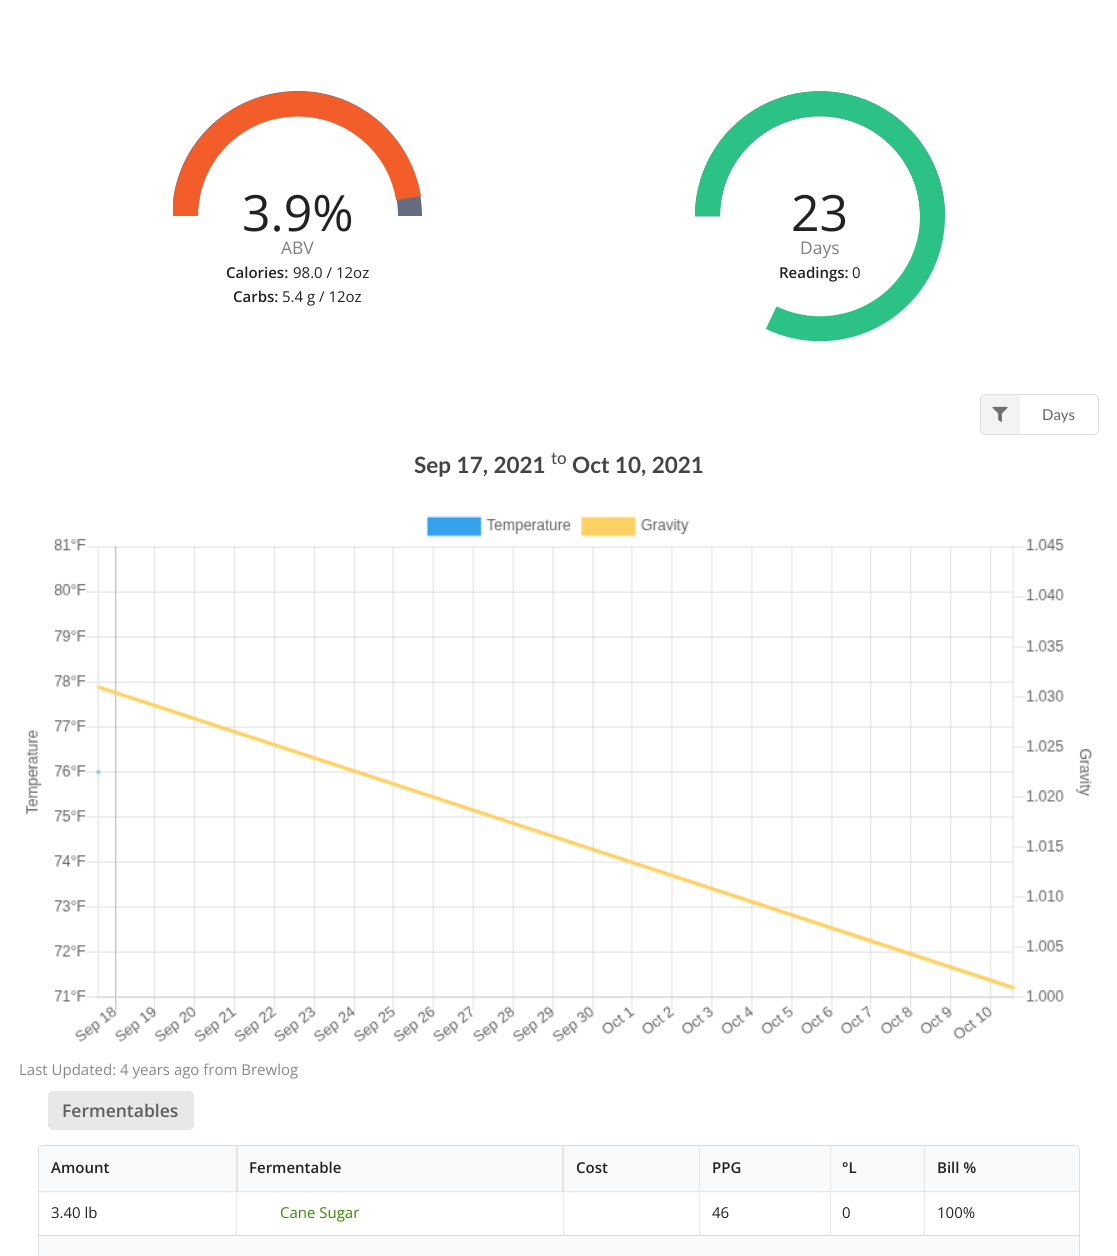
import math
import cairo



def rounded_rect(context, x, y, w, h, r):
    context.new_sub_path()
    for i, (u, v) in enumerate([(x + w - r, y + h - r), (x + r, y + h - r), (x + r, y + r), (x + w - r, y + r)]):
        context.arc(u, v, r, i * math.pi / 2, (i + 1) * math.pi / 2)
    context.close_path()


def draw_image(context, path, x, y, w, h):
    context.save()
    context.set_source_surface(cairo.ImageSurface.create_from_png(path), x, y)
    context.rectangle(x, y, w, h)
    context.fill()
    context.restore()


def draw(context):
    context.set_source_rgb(1, 1, 1)
    context.paint()
    rounded_rect(context, 980.5, 394.5, 118, 40, 4.5)
    context.set_source_rgb(222 / 255, 222 / 255, 222 / 255)
    context.set_line_width(1)
    context.stroke()
    context.set_source_rgb(243 / 255, 243 / 255, 243 / 255)
    context.new_path()
    context.move_to(986, 395)
    context.line_to(1020, 395)
    context.line_to(1020, 434)
    context.line_to(986, 434)
    context.curve_to(983, 434, 981, 432, 981, 429)
    context.line_to(981, 400)
    context.curve_to(981, 397, 983, 395, 986, 395)
    context.close_path()
    context.fill()
    draw_image(context, "images/2.png", 992, 406, 16, 16)
    draw_image(context, "images/3.png", 26, 516, 1066, 526)
    context.set_source_rgb(232 / 255, 232 / 255, 232 / 255)
    rounded_rect(context, 48, 1091, 146, 39, 5)
    context.fill()
    rounded_rect(context, 38.5, 1145.5, 1041, 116, 4.5)
    context.set_source_rgb(222 / 255, 222 / 255, 222 / 255)
    context.stroke()
    context.set_source_rgb(249 / 255, 250 / 255, 251 / 255)
    context.new_path()
    context.move_to(44, 1146)
    context.line_to(236, 1146)
    context.line_to(236, 1193)
    context.line_to(39, 1193)
    context.line_to(39, 1151)
    context.curve_to(39, 1148, 41, 1146, 44, 1146)
    context.close_path()
    context.fill()
    context.set_source_rgb(227 / 255, 229 / 255, 230 / 255)
    context.rectangle(39, 1191, 197, 1)
    context.fill()
    context.set_source_rgb(249 / 255, 250 / 255, 251 / 255)
    context.rectangle(236, 1146, 688, 47)
    context.fill()
    context.set_source_rgb(227 / 255, 229 / 255, 230 / 255)
    context.new_path()
    context.move_to(562, 1192)
    context.line_to(236, 1192)
    context.line_to(238, 1191)
    context.line_to(562, 1191)
    context.close_path()
    context.fill()
    context.set_source_rgba(34 / 255, 36 / 255, 38 / 255, 0.1)
    context.new_path()
    context.move_to(236, 1192)
    context.line_to(236, 1146)
    context.line_to(238, 1146)
    context.line_to(238, 1191)
    context.close_path()
    context.fill()
    context.set_source_rgb(227 / 255, 229 / 255, 230 / 255)
    context.new_path()
    context.move_to(699, 1192)
    context.line_to(562, 1192)
    context.line_to(564, 1191)
    context.line_to(699, 1191)
    context.close_path()
    context.fill()
    context.set_source_rgba(34 / 255, 36 / 255, 38 / 255, 0.1)
    context.new_path()
    context.move_to(562, 1192)
    context.line_to(562, 1146)
    context.line_to(564, 1146)
    context.line_to(564, 1191)
    context.close_path()
    context.fill()
    context.set_source_rgb(227 / 255, 229 / 255, 230 / 255)
    context.new_path()
    context.move_to(830, 1192)
    context.line_to(699, 1192)
    context.line_to(700, 1191)
    context.line_to(830, 1191)
    context.close_path()
    context.fill()
    context.set_source_rgba(34 / 255, 36 / 255, 38 / 255, 0.1)
    context.new_path()
    context.move_to(699, 1192)
    context.line_to(699, 1146)
    context.line_to(700, 1146)
    context.line_to(700, 1191)
    context.close_path()
    context.fill()
    context.set_source_rgb(227 / 255, 229 / 255, 230 / 255)
    context.new_path()
    context.move_to(924, 1192)
    context.line_to(830, 1192)
    context.line_to(831, 1191)
    context.line_to(924, 1191)
    context.close_path()
    context.fill()
    context.set_source_rgba(34 / 255, 36 / 255, 38 / 255, 0.1)
    context.new_path()
    context.move_to(830, 1192)
    context.line_to(830, 1146)
    context.line_to(831, 1146)
    context.line_to(831, 1191)
    context.close_path()
    context.fill()
    context.set_source_rgb(249 / 255, 250 / 255, 251 / 255)
    context.new_path()
    context.move_to(924, 1146)
    context.line_to(1074, 1146)
    context.curve_to(1077, 1146, 1079, 1148, 1079, 1151)
    context.line_to(1079, 1193)
    context.line_to(924, 1193)
    context.close_path()
    context.fill()
    context.set_source_rgb(228 / 255, 229 / 255, 230 / 255)
    context.rectangle(924, 1146, 1, 47)
    context.fill()
    context.set_source_rgb(227 / 255, 229 / 255, 230 / 255)
    context.rectangle(924, 1191, 155, 1)
    context.fill()
    context.set_source_rgb(208 / 255, 210 / 255, 211 / 255)
    context.rectangle(924, 1191, 1, 1)
    context.fill()
    context.set_source_rgb(233 / 255, 233 / 255, 233 / 255)
    context.rectangle(236, 1193, 1, 42)
    context.fill()
    context.rectangle(563, 1193, 1, 42)
    context.fill()
    context.rectangle(699, 1193, 1, 42)
    context.fill()
    context.rectangle(830, 1193, 1, 42)
    context.fill()
    context.rectangle(924, 1193, 1, 42)
    context.fill()
    context.set_source_rgb(249 / 255, 250 / 255, 251 / 255)
    context.rectangle(39, 1236, 1040, 20)
    context.fill()
    context.set_source_rgb(217 / 255, 218 / 255, 219 / 255)
    context.rectangle(39, 1235, 1040, 1)
    context.fill()
    context.select_font_face("Open Sans")
    context.set_font_size(50)
    context.set_source_rgb(34 / 255, 34 / 255, 34 / 255)
    context.move_to(242, 231)
    context.show_text("3.9%")
    context.save()
    context.rectangle(173, 91, 250, 250)
    context.clip()
    context.set_source_rgb(101 / 255, 109 / 255, 127 / 255)
    context.new_path()
    context.move_to(172, 216)
    context.curve_to(172, 147, 228, 91, 298, 91)
    context.curve_to(367, 91, 422, 147, 422, 216)
    context.line_to(398, 216)
    context.curve_to(398, 161, 353, 116, 298, 116)
    context.curve_to(242, 116, 198, 161, 198, 216)
    context.close_path()
    context.fill()
    context.set_source_rgb(243 / 255, 93 / 255, 42 / 255)
    context.new_path()
    context.move_to(172, 216)
    context.curve_to(173, 151, 223, 97, 287, 92)
    context.curve_to(352, 86, 410, 132, 421, 196)
    context.line_to(396, 200)
    context.curve_to(388, 149, 341, 112, 289, 117)
    context.curve_to(238, 121, 198, 164, 198, 216)
    context.close_path()
    context.fill()
    context.restore()
    context.set_font_size(17.5)
    context.set_source_rgb(128 / 255, 128 / 255, 128 / 255)
    context.move_to(281, 254)
    context.show_text("ABV")
    context.select_font_face("Open Sans SemiBold")
    context.set_font_size(15)
    context.set_source_rgb(34 / 255, 34 / 255, 34 / 255)
    context.move_to(226, 278)
    context.show_text("Calories:")
    context.select_font_face("Open Sans")
    context.move_to(293, 278)
    context.show_text("98.0 / 12oz")
    context.select_font_face("Open Sans SemiBold")
    context.move_to(233, 302)
    context.show_text("Carbs:")
    context.select_font_face("Open Sans")
    context.move_to(282, 302)
    context.show_text("5.4 g / 12oz")
    context.set_font_size(50)
    context.move_to(791, 231)
    context.show_text("23")
    context.set_font_size(17.5)
    context.set_source_rgb(128 / 255, 128 / 255, 128 / 255)
    context.move_to(800, 254)
    context.show_text("Days")
    draw_image(context, "images/1.png", 695, 91, 250, 250)
    context.select_font_face("Open Sans SemiBold")
    context.set_font_size(15)
    context.set_source_rgb(34 / 255, 34 / 255, 34 / 255)
    context.move_to(779, 278)
    context.show_text("Readings:")
    context.select_font_face("Open Sans")
    context.move_to(852, 278)
    context.show_text("0")
    context.select_font_face("Lato")
    context.set_source_rgb(102 / 255, 102 / 255, 102 / 255)
    context.move_to(1042, 420)
    context.show_text("Days")
    context.select_font_face("Lato", cairo.FontSlant.NORMAL, cairo.FontWeight.BOLD)
    context.set_font_size(22.5)
    context.set_source_rgb(68 / 255, 68 / 255, 68 / 255)
    context.move_to(414, 473)
    context.show_text("Sep 17, 2021")
    context.select_font_face("Lato")
    context.set_font_size(17)
    context.move_to(551, 464)
    context.show_text("to")
    context.select_font_face("Lato", cairo.FontSlant.NORMAL, cairo.FontWeight.BOLD)
    context.set_font_size(22.5)
    context.move_to(572, 473)
    context.show_text("Oct 10, 2021")
    context.select_font_face("Open Sans")
    context.set_font_size(15)
    context.set_source_rgb(136 / 255, 136 / 255, 136 / 255)
    context.move_to(19, 1075)
    context.show_text("Last Updated: 4 years ago from Brewlog")
    context.select_font_face("Open Sans SemiBold")
    context.set_font_size(17.5)
    context.set_source_rgb(93 / 255, 93 / 255, 93 / 255)
    context.move_to(62, 1117)
    context.show_text("Fermentables")
    context.set_font_size(15)
    context.set_source_rgb(34 / 255, 34 / 255, 34 / 255)
    context.move_to(51, 1173)
    context.show_text("Amount")
    context.move_to(249, 1173)
    context.show_text("Fermentable")
    context.move_to(576, 1173)
    context.show_text("Cost")
    context.move_to(712, 1173)
    context.show_text("PPG")
    context.move_to(842, 1173)
    context.show_text("°L")
    context.move_to(937, 1173)
    context.show_text("Bill %")
    context.select_font_face("Open Sans")
    context.move_to(51, 1218)
    context.show_text("3.40 lb")
    context.set_source_rgb(55 / 255, 138 / 255, 0)
    context.move_to(280, 1218)
    context.show_text("Cane Sugar")
    context.set_source_rgb(34 / 255, 34 / 255, 34 / 255)
    context.move_to(712, 1218)
    context.show_text("46")
    context.move_to(842, 1218)
    context.show_text("0")
    context.move_to(937, 1218)
    context.show_text("100%")


surface = cairo.ImageSurface(cairo.Format.RGB24, 1117, 1256)
context = cairo.Context(surface)
options = cairo.FontOptions()
options.set_hint_metrics(cairo.HintMetrics.OFF)
options.set_hint_style(cairo.HintStyle.NONE)
context.set_font_options(options)
context.set_miter_limit(4)
draw(context)
surface.write_to_png("out.png")
